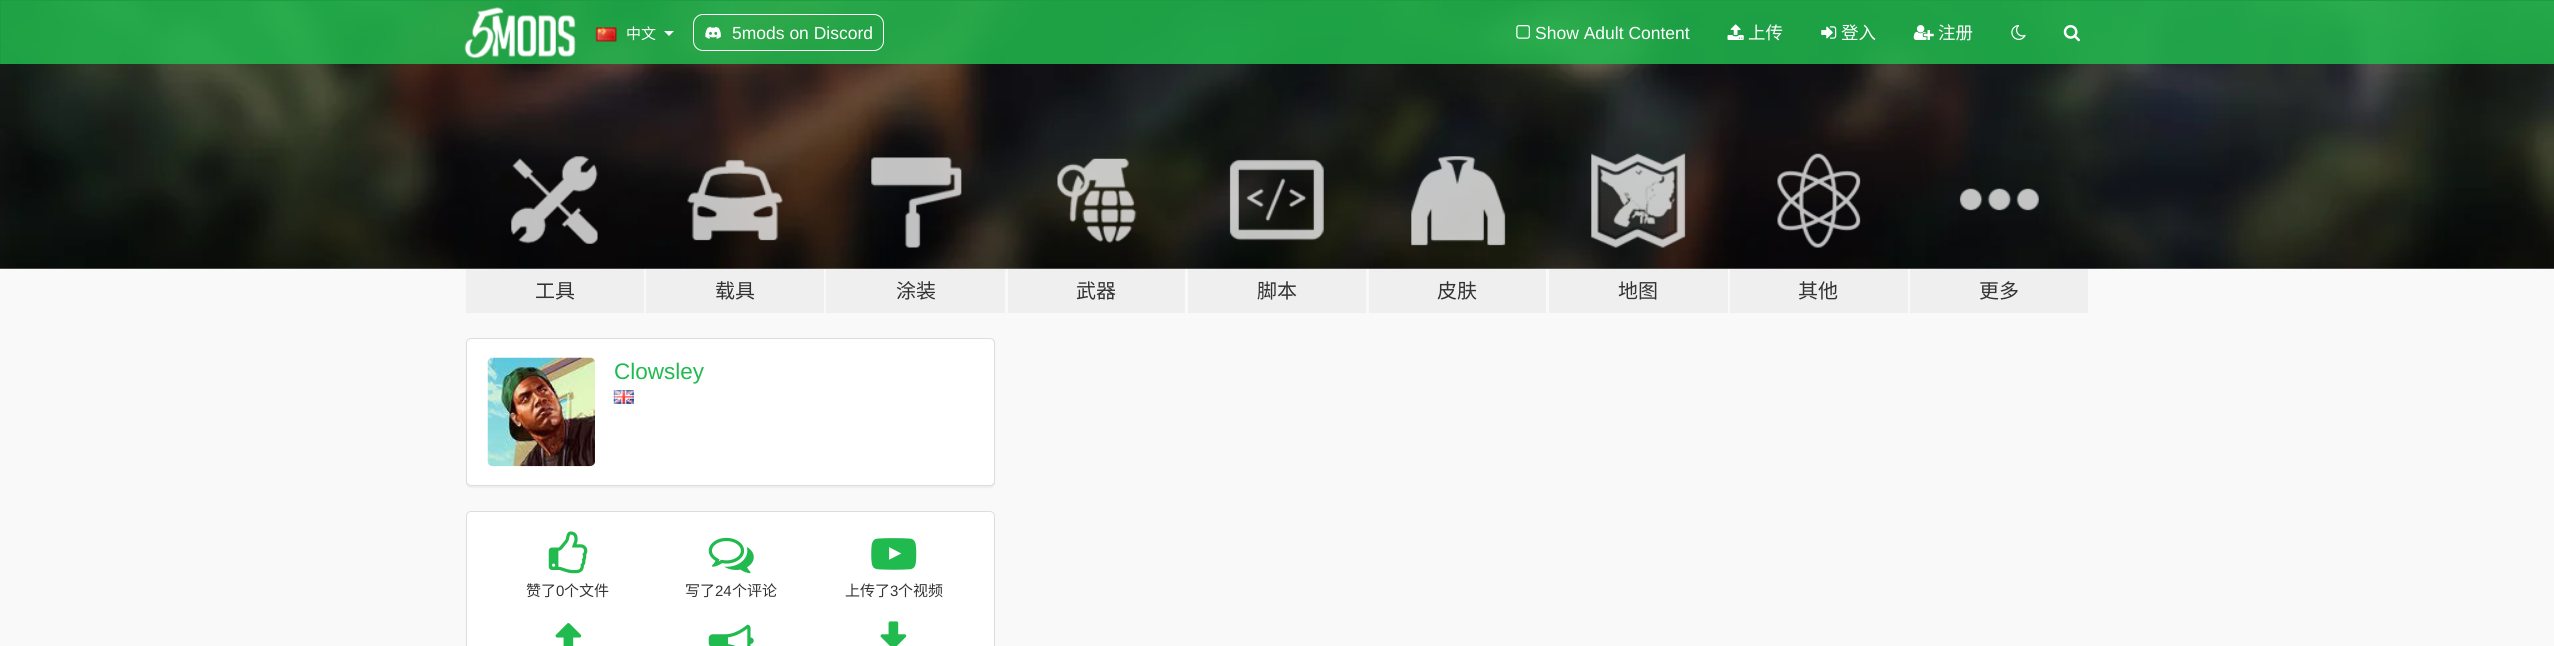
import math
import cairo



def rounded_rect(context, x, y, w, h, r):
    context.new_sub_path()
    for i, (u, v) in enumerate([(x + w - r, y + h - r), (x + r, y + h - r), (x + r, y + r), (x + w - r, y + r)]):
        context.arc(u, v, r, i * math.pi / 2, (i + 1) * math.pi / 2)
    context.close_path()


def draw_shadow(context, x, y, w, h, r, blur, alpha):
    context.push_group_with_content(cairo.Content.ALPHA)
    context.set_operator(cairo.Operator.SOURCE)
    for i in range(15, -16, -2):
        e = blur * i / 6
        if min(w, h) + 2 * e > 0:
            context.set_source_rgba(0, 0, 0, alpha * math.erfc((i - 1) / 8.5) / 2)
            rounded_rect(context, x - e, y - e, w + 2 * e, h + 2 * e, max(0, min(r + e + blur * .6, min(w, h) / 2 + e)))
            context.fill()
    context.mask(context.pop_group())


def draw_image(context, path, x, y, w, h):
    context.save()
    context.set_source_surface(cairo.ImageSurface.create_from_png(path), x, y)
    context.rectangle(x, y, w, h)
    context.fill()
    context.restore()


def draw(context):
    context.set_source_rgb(249 / 255, 249 / 255, 249 / 255)
    context.paint()
    draw_image(context, "images/10.png", 0, 1, 2554, 268)
    context.set_source_rgba(32 / 255, 186 / 255, 78 / 255, 0.85)
    context.rectangle(1, 1, 2553, 63)
    context.fill()
    context.set_source_rgb(27 / 255, 158 / 255, 66 / 255)
    context.rectangle(0, 0, 2554, 1)
    context.fill()
    context.rectangle(0, 0, 1, 64)
    context.fill()
    draw_image(context, "images/1.png", 464, 7, 112, 51)
    draw_image(context, "images/2.png", 595, 27, 22, 15)
    context.set_source_rgb(1, 1, 1)
    context.new_path()
    context.move_to(664, 31)
    context.line_to(674, 31)
    context.line_to(669, 36)
    context.close_path()
    context.fill()
    rounded_rect(context, 693.5, 14.5, 190, 36, 9.5)
    context.set_line_width(1)
    context.stroke()
    draw_image(context, "images/3.png", 705, 26, 16, 13)
    draw_image(context, "images/4.png", 1516, 25, 14, 14)
    draw_image(context, "images/5.png", 1727, 24, 17, 16)
    draw_image(context, "images/6.png", 1821, 26, 16, 13)
    draw_image(context, "images/7.png", 1913, 25, 21, 15)
    draw_image(context, "images/8.png", 2011, 25, 15, 15)
    draw_image(context, "images/9.png", 2063, 25, 17, 17)
    draw_image(context, "images/11.png", 511, 156, 87, 88)
    context.set_source_rgb(239 / 255, 239 / 255, 239 / 255)
    context.rectangle(466, 269, 178, 44)
    context.fill()
    draw_image(context, "images/12.png", 687, 159, 96, 82)
    context.rectangle(646, 269, 178, 44)
    context.fill()
    draw_image(context, "images/13.png", 871, 157, 91, 91)
    context.rectangle(826, 269, 179, 44)
    context.fill()
    draw_image(context, "images/14.png", 1057, 158, 80, 85)
    context.rectangle(1008, 269, 177, 44)
    context.fill()
    draw_image(context, "images/15.png", 1229, 159, 95, 82)
    context.rectangle(1188, 269, 178, 44)
    context.fill()
    draw_image(context, "images/16.png", 1411, 156, 95, 90)
    context.rectangle(1369, 269, 177, 44)
    context.fill()
    draw_image(context, "images/17.png", 1591, 153, 95, 95)
    context.rectangle(1549, 269, 179, 44)
    context.fill()
    draw_image(context, "images/18.png", 1777, 153, 84, 95)
    context.rectangle(1730, 269, 178, 44)
    context.fill()
    draw_image(context, "images/19.png", 1959, 188, 80, 23)
    context.rectangle(1910, 269, 178, 44)
    context.fill()
    context.set_source_rgb(0, 0, 0)
    draw_shadow(context, 466, 339, 529, 149, 5, 0.5, 0.05)
    context.set_source_rgb(1, 1, 1)
    rounded_rect(context, 466.5, 338.5, 528, 147, 4.5)
    context.fill_preserve()
    context.set_source_rgb(221 / 255, 221 / 255, 221 / 255)
    context.stroke()
    draw_image(context, "images/20.png", 487, 357, 108, 110)
    draw_image(context, "images/21.png", 613, 390, 21, 14)
    context.set_source_rgb(1, 1, 1)
    rounded_rect(context, 466.5, 511.5, 528, 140, 4.5)
    context.fill_preserve()
    context.set_source_rgb(221 / 255, 221 / 255, 221 / 255)
    context.stroke()
    draw_image(context, "images/22.png", 548, 531, 40, 43)
    draw_image(context, "images/23.png", 708, 537, 46, 37)
    draw_image(context, "images/24.png", 871, 538, 46, 32)
    draw_image(context, "images/25.png", 555, 623, 27, 23)
    draw_image(context, "images/26.png", 708, 624, 46, 22)
    draw_image(context, "images/27.png", 880, 621, 27, 25)
    context.select_font_face("Noto Sans CJK SC")
    context.set_font_size(15)
    context.set_source_rgb(1, 1, 1)
    context.move_to(626, 39)
    context.show_text("中文")
    context.select_font_face("Liberation Sans")
    context.set_font_size(17.5)
    context.move_to(732, 39)
    context.show_text("5mods on Discord")
    context.move_to(1535, 39)
    context.show_text("Show Adult Content")
    context.select_font_face("Noto Sans CJK SC")
    context.move_to(1748, 39)
    context.show_text("上传")
    context.move_to(1841, 39)
    context.show_text("登入")
    context.move_to(1938, 39)
    context.show_text("注册")
    context.set_font_size(20)
    context.set_source_rgb(51 / 255, 51 / 255, 51 / 255)
    context.move_to(535, 298)
    context.show_text("工具")
    context.move_to(715, 298)
    context.show_text("载具")
    context.move_to(896, 298)
    context.show_text("涂装")
    context.move_to(1076, 298)
    context.show_text("武器")
    context.move_to(1257, 298)
    context.show_text("脚本")
    context.move_to(1437, 298)
    context.show_text("皮肤")
    context.move_to(1618, 298)
    context.show_text("地图")
    context.move_to(1798, 298)
    context.show_text("其他")
    context.move_to(1979, 298)
    context.show_text("更多")
    context.select_font_face("Liberation Sans")
    context.set_font_size(22.5)
    context.set_source_rgb(32 / 255, 186 / 255, 78 / 255)
    context.move_to(614, 379)
    context.show_text("Clowsley")
    context.select_font_face("Noto Sans CJK SC")
    context.set_font_size(15)
    context.set_source_rgb(51 / 255, 51 / 255, 51 / 255)
    context.move_to(526, 596)
    context.show_text("赞了")
    context.select_font_face("Liberation Sans")
    context.move_to(556, 596)
    context.show_text("0")
    context.select_font_face("Noto Sans CJK SC")
    context.move_to(564, 596)
    context.show_text("个文件")
    context.move_to(685, 596)
    context.show_text("写了")
    context.select_font_face("Liberation Sans")
    context.move_to(715, 596)
    context.show_text("24")
    context.select_font_face("Noto Sans CJK SC")
    context.move_to(732, 596)
    context.show_text("个评论")
    context.move_to(845, 596)
    context.show_text("上传了")
    context.select_font_face("Liberation Sans")
    context.move_to(890, 596)
    context.show_text("3")
    context.select_font_face("Noto Sans CJK SC")
    context.move_to(898, 596)
    context.show_text("个视频")


surface = cairo.ImageSurface(cairo.Format.RGB24, 2554, 646)
context = cairo.Context(surface)
options = cairo.FontOptions()
options.set_hint_metrics(cairo.HintMetrics.OFF)
options.set_hint_style(cairo.HintStyle.NONE)
context.set_font_options(options)
context.set_miter_limit(4)
draw(context)
surface.write_to_png("out.png")
